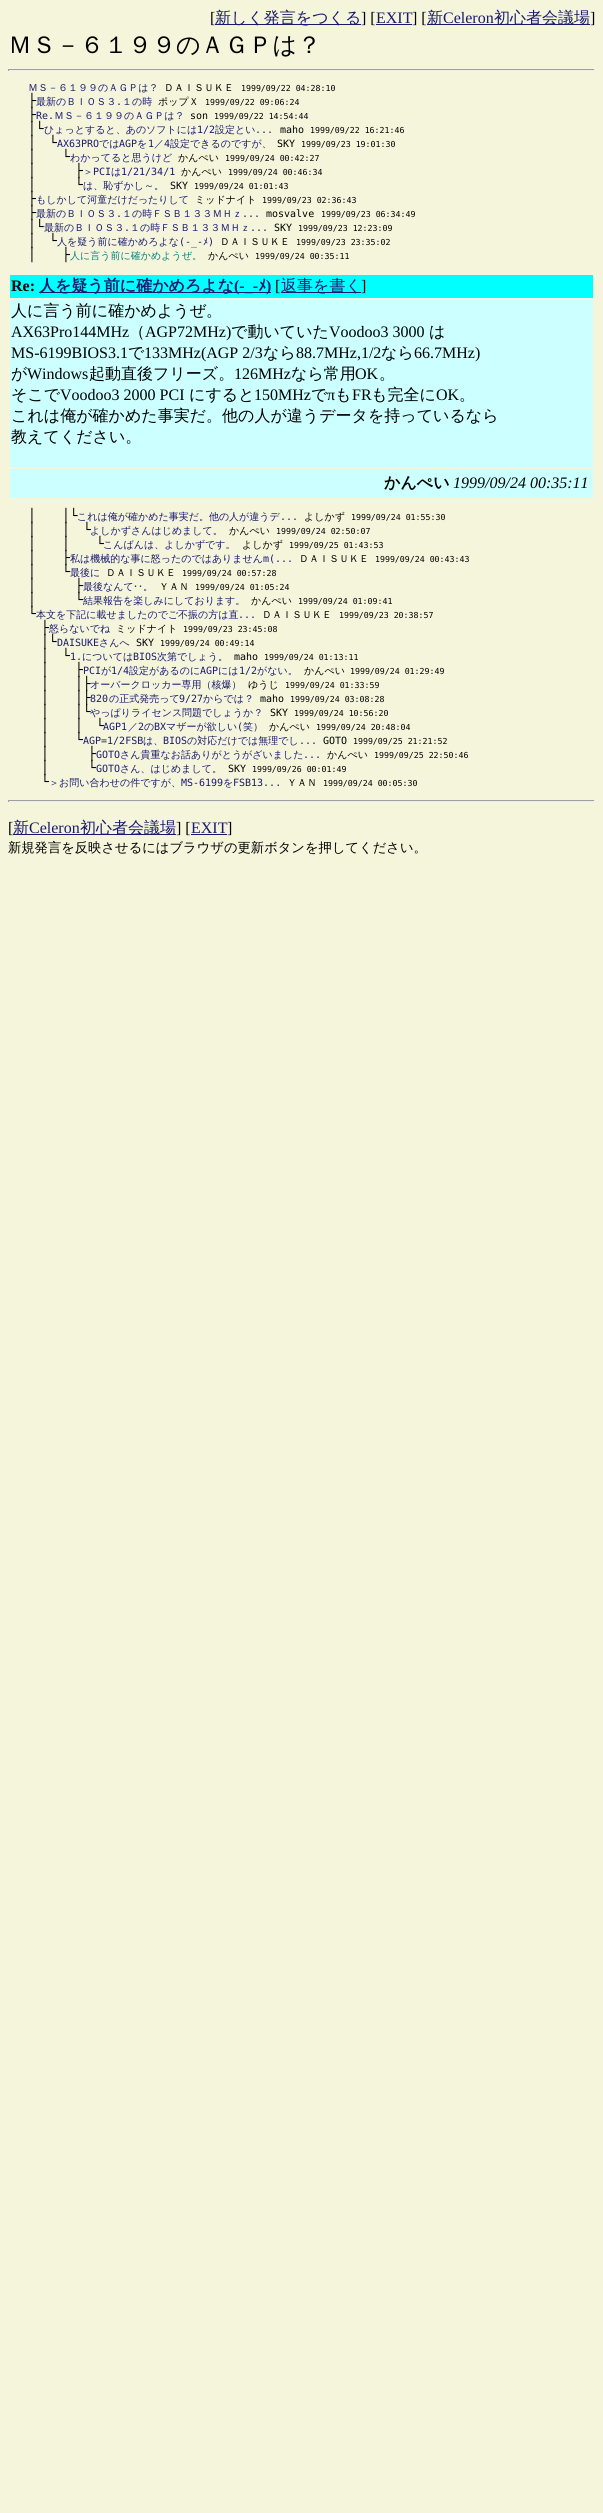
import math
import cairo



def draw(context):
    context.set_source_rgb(245 / 255, 245 / 255, 220 / 255)
    context.paint()
    context.set_source_rgb(25 / 255, 25 / 255, 112 / 255)
    context.rectangle(215, 24, 146, 1)
    context.fill()
    context.rectangle(376, 24, 36, 1)
    context.fill()
    context.rectangle(427, 24, 163, 1)
    context.fill()
    context.set_source_rgb(159 / 255, 159 / 255, 159 / 255)
    context.rectangle(8, 69, 587, 1)
    context.fill()
    context.set_source_rgb(238 / 255, 238 / 255, 238 / 255)
    context.rectangle(594, 69, 1, 2)
    context.fill()
    context.rectangle(8, 70, 587, 1)
    context.fill()
    context.set_source_rgb(159 / 255, 159 / 255, 159 / 255)
    context.rectangle(8, 69, 1, 2)
    context.fill()
    context.set_source_rgb(0, 1, 1)
    context.rectangle(10, 275, 583, 23)
    context.fill()
    context.set_source_rgb(25 / 255, 25 / 255, 112 / 255)
    context.rectangle(39, 292, 232, 1)
    context.fill()
    context.rectangle(281, 292, 80, 1)
    context.fill()
    context.set_source_rgb(204 / 255, 1, 1)
    context.rectangle(10, 300, 583, 167)
    context.fill()
    context.rectangle(10, 469, 583, 29)
    context.fill()
    context.set_source_rgb(159 / 255, 159 / 255, 159 / 255)
    context.rectangle(8, 800, 587, 1)
    context.fill()
    context.set_source_rgb(238 / 255, 238 / 255, 238 / 255)
    context.rectangle(594, 800, 1, 2)
    context.fill()
    context.rectangle(8, 801, 587, 1)
    context.fill()
    context.set_source_rgb(159 / 255, 159 / 255, 159 / 255)
    context.rectangle(8, 800, 1, 2)
    context.fill()
    context.set_source_rgb(25 / 255, 25 / 255, 112 / 255)
    context.rectangle(13, 834, 163, 1)
    context.fill()
    context.rectangle(191, 834, 36, 1)
    context.fill()
    context.select_font_face("Liberation Serif")
    context.set_font_size(16)
    context.set_source_rgb(0, 0, 0)
    context.move_to(210, 23)
    context.show_text("[")
    context.select_font_face("WenQuanYi Zen Hei Medium")
    context.set_source_rgb(25 / 255, 25 / 255, 112 / 255)
    context.move_to(215, 23)
    context.show_text("新しく発言をつくる")
    context.select_font_face("Liberation Serif")
    context.set_source_rgb(0, 0, 0)
    context.move_to(361, 23)
    context.show_text("] [")
    context.set_source_rgb(25 / 255, 25 / 255, 112 / 255)
    context.move_to(376, 23)
    context.show_text("EXIT")
    context.set_source_rgb(0, 0, 0)
    context.move_to(412, 23)
    context.show_text("] [")
    context.select_font_face("WenQuanYi Zen Hei Medium")
    context.set_source_rgb(25 / 255, 25 / 255, 112 / 255)
    context.move_to(427, 23)
    context.show_text("新")
    context.select_font_face("Liberation Serif")
    context.move_to(443, 23)
    context.show_text("Celeron")
    context.select_font_face("WenQuanYi Zen Hei Medium")
    context.move_to(494, 23)
    context.show_text("初心者会議場")
    context.select_font_face("Liberation Serif")
    context.set_source_rgb(0, 0, 0)
    context.move_to(590, 23)
    context.show_text("]")
    context.select_font_face("WenQuanYi Zen Hei Medium")
    context.set_font_size(24)
    context.move_to(8, 53)
    context.show_text("ＭＳ－６１９９のＡＧＰは？")
    context.set_font_size(10)
    context.set_source_rgb(25 / 255, 25 / 255, 112 / 255)
    context.move_to(28, 91)
    context.show_text("ＭＳ－６１９９のＡＧＰは？")
    context.set_source_rgb(0, 0, 0)
    context.move_to(164, 91)
    context.show_text("ＤＡＩＳＵＫＥ")
    context.select_font_face("DejaVu Sans Mono")
    context.set_font_size(8.25)
    context.move_to(241, 91)
    context.show_text("1999/09/22 04:28:10")
    context.set_font_size(13)
    context.move_to(28, 105)
    context.show_text("├")
    context.select_font_face("WenQuanYi Zen Hei Medium")
    context.set_font_size(10)
    context.set_source_rgb(25 / 255, 25 / 255, 112 / 255)
    context.move_to(36, 105)
    context.show_text("最新のＢＩＯＳ３")
    context.select_font_face("DejaVu Sans Mono")
    context.move_to(116, 105)
    context.show_text(".")
    context.select_font_face("WenQuanYi Zen Hei Medium")
    context.move_to(122, 105)
    context.show_text("１の時")
    context.set_source_rgb(0, 0, 0)
    context.move_to(158, 105)
    context.show_text("ポップＸ")
    context.select_font_face("DejaVu Sans Mono")
    context.set_font_size(8.25)
    context.move_to(205, 105)
    context.show_text("1999/09/22 09:06:24")
    context.set_font_size(13)
    context.move_to(28, 119)
    context.show_text("├")
    context.set_font_size(10)
    context.set_source_rgb(25 / 255, 25 / 255, 112 / 255)
    context.move_to(36, 119)
    context.show_text("Re.")
    context.select_font_face("WenQuanYi Zen Hei Medium")
    context.move_to(54, 119)
    context.show_text("ＭＳ－６１９９のＡＧＰは？")
    context.select_font_face("DejaVu Sans Mono")
    context.set_source_rgb(0, 0, 0)
    context.move_to(190, 119)
    context.show_text("son")
    context.set_font_size(8.25)
    context.move_to(214, 119)
    context.show_text("1999/09/22 14:54:44")
    context.set_font_size(13)
    context.move_to(28, 133)
    context.show_text("│└")
    context.select_font_face("WenQuanYi Zen Hei Medium")
    context.set_font_size(10)
    context.set_source_rgb(25 / 255, 25 / 255, 112 / 255)
    context.move_to(44, 133)
    context.show_text("ひょっとすると、あのソフトには")
    context.select_font_face("DejaVu Sans Mono")
    context.move_to(197, 133)
    context.show_text("1/2")
    context.select_font_face("WenQuanYi Zen Hei Medium")
    context.move_to(215, 133)
    context.show_text("設定とい")
    context.select_font_face("DejaVu Sans Mono")
    context.move_to(255, 133)
    context.show_text("...")
    context.set_source_rgb(0, 0, 0)
    context.move_to(280, 133)
    context.show_text("maho")
    context.set_font_size(8.25)
    context.move_to(310, 133)
    context.show_text("1999/09/22 16:21:46")
    context.set_font_size(13)
    context.move_to(28, 147)
    context.show_text("│")
    context.move_to(49, 147)
    context.show_text("└")
    context.set_font_size(10)
    context.set_source_rgb(25 / 255, 25 / 255, 112 / 255)
    context.move_to(57, 147)
    context.show_text("AX63PRO")
    context.select_font_face("WenQuanYi Zen Hei Medium")
    context.move_to(99, 147)
    context.show_text("では")
    context.select_font_face("DejaVu Sans Mono")
    context.move_to(119, 147)
    context.show_text("AGP")
    context.select_font_face("WenQuanYi Zen Hei Medium")
    context.move_to(137, 147)
    context.show_text("を")
    context.select_font_face("DejaVu Sans Mono")
    context.move_to(148, 147)
    context.show_text("1")
    context.select_font_face("WenQuanYi Zen Hei Medium")
    context.move_to(154, 147)
    context.show_text("／")
    context.select_font_face("DejaVu Sans Mono")
    context.move_to(164, 147)
    context.show_text("4")
    context.select_font_face("WenQuanYi Zen Hei Medium")
    context.move_to(170, 147)
    context.show_text("設定できるのですが、")
    context.select_font_face("DejaVu Sans Mono")
    context.set_source_rgb(0, 0, 0)
    context.move_to(277, 147)
    context.show_text("SKY")
    context.set_font_size(8.25)
    context.move_to(301, 147)
    context.show_text("1999/09/23 19:01:30")
    context.set_font_size(13)
    context.move_to(28, 161)
    context.show_text("│")
    context.move_to(62, 161)
    context.show_text("└")
    context.select_font_face("WenQuanYi Zen Hei Medium")
    context.set_font_size(10)
    context.set_source_rgb(25 / 255, 25 / 255, 112 / 255)
    context.move_to(70, 161)
    context.show_text("わかってると思うけど")
    context.set_source_rgb(0, 0, 0)
    context.move_to(178, 161)
    context.show_text("かんぺい")
    context.select_font_face("DejaVu Sans Mono")
    context.set_font_size(8.25)
    context.move_to(225, 161)
    context.show_text("1999/09/24 00:42:27")
    context.set_font_size(13)
    context.move_to(28, 175)
    context.show_text("│")
    context.move_to(75, 175)
    context.show_text("├")
    context.select_font_face("WenQuanYi Zen Hei Medium")
    context.set_font_size(10)
    context.set_source_rgb(25 / 255, 25 / 255, 112 / 255)
    context.move_to(83, 175)
    context.show_text("＞")
    context.select_font_face("DejaVu Sans Mono")
    context.move_to(93, 175)
    context.show_text("PCI")
    context.select_font_face("WenQuanYi Zen Hei Medium")
    context.move_to(111, 175)
    context.show_text("は")
    context.select_font_face("DejaVu Sans Mono")
    context.move_to(121, 175)
    context.show_text("1/21/34/1")
    context.select_font_face("WenQuanYi Zen Hei Medium")
    context.set_source_rgb(0, 0, 0)
    context.move_to(181, 175)
    context.show_text("かんぺい")
    context.select_font_face("DejaVu Sans Mono")
    context.set_font_size(8.25)
    context.move_to(228, 175)
    context.show_text("1999/09/24 00:46:34")
    context.set_font_size(13)
    context.move_to(28, 189)
    context.show_text("│")
    context.move_to(75, 189)
    context.show_text("└")
    context.select_font_face("WenQuanYi Zen Hei Medium")
    context.set_font_size(10)
    context.set_source_rgb(25 / 255, 25 / 255, 112 / 255)
    context.move_to(83, 189)
    context.show_text("は、恥ずかし～。")
    context.select_font_face("DejaVu Sans Mono")
    context.set_source_rgb(0, 0, 0)
    context.move_to(170, 189)
    context.show_text("SKY")
    context.set_font_size(8.25)
    context.move_to(194, 189)
    context.show_text("1999/09/24 01:01:43")
    context.set_font_size(13)
    context.move_to(28, 203)
    context.show_text("├")
    context.select_font_face("WenQuanYi Zen Hei Medium")
    context.set_font_size(10)
    context.set_source_rgb(25 / 255, 25 / 255, 112 / 255)
    context.move_to(36, 203)
    context.show_text("もしかして河童だけだったりして")
    context.set_source_rgb(0, 0, 0)
    context.move_to(195, 203)
    context.show_text("ミッドナイト")
    context.select_font_face("DejaVu Sans Mono")
    context.set_font_size(8.25)
    context.move_to(262, 203)
    context.show_text("1999/09/23 02:36:43")
    context.set_font_size(13)
    context.move_to(28, 217)
    context.show_text("├")
    context.select_font_face("WenQuanYi Zen Hei Medium")
    context.set_font_size(10)
    context.set_source_rgb(25 / 255, 25 / 255, 112 / 255)
    context.move_to(36, 217)
    context.show_text("最新のＢＩＯＳ３")
    context.select_font_face("DejaVu Sans Mono")
    context.move_to(116, 217)
    context.show_text(".")
    context.select_font_face("WenQuanYi Zen Hei Medium")
    context.move_to(122, 217)
    context.show_text("１の時ＦＳＢ１３３ＭＨｚ")
    context.select_font_face("DejaVu Sans Mono")
    context.move_to(242, 217)
    context.show_text("...")
    context.set_source_rgb(0, 0, 0)
    context.move_to(266, 217)
    context.show_text("mosvalve")
    context.set_font_size(8.25)
    context.move_to(321, 217)
    context.show_text("1999/09/23 06:34:49")
    context.set_font_size(13)
    context.move_to(28, 231)
    context.show_text("│└")
    context.select_font_face("WenQuanYi Zen Hei Medium")
    context.set_font_size(10)
    context.set_source_rgb(25 / 255, 25 / 255, 112 / 255)
    context.move_to(44, 231)
    context.show_text("最新のＢＩＯＳ３")
    context.select_font_face("DejaVu Sans Mono")
    context.move_to(124, 231)
    context.show_text(".")
    context.select_font_face("WenQuanYi Zen Hei Medium")
    context.move_to(130, 231)
    context.show_text("１の時ＦＳＢ１３３ＭＨｚ")
    context.select_font_face("DejaVu Sans Mono")
    context.move_to(250, 231)
    context.show_text("...")
    context.set_source_rgb(0, 0, 0)
    context.move_to(274, 231)
    context.show_text("SKY")
    context.set_font_size(8.25)
    context.move_to(298, 231)
    context.show_text("1999/09/23 12:23:09")
    context.set_font_size(13)
    context.move_to(28, 245)
    context.show_text("│")
    context.move_to(49, 245)
    context.show_text("└")
    context.select_font_face("WenQuanYi Zen Hei Medium")
    context.set_font_size(10)
    context.set_source_rgb(25 / 255, 25 / 255, 112 / 255)
    context.move_to(57, 245)
    context.show_text("人を疑う前に確かめろよな")
    context.select_font_face("DejaVu Sans Mono")
    context.move_to(179, 245)
    context.show_text("(-_-")
    context.select_font_face("IPAGothic")
    context.move_to(203, 245)
    context.show_text("ﾒ")
    context.select_font_face("DejaVu Sans Mono")
    context.move_to(208, 245)
    context.show_text(")")
    context.select_font_face("WenQuanYi Zen Hei Medium")
    context.set_source_rgb(0, 0, 0)
    context.move_to(220, 245)
    context.show_text("ＤＡＩＳＵＫＥ")
    context.select_font_face("DejaVu Sans Mono")
    context.set_font_size(8.25)
    context.move_to(296, 245)
    context.show_text("1999/09/23 23:35:02")
    context.set_font_size(13)
    context.move_to(28, 259)
    context.show_text("│")
    context.move_to(62, 259)
    context.show_text("├")
    context.select_font_face("WenQuanYi Zen Hei Medium")
    context.set_font_size(10)
    context.set_source_rgb(0, 128 / 255, 128 / 255)
    context.move_to(70, 259)
    context.show_text("人に言う前に確かめようぜ。")
    context.set_source_rgb(0, 0, 0)
    context.move_to(208, 259)
    context.show_text("かんぺい")
    context.select_font_face("DejaVu Sans Mono")
    context.set_font_size(8.25)
    context.move_to(255, 259)
    context.show_text("1999/09/24 00:35:11")
    context.select_font_face("Liberation Serif", cairo.FontSlant.NORMAL, cairo.FontWeight.BOLD)
    context.set_font_size(16)
    context.move_to(11, 291)
    context.show_text("Re:")
    context.select_font_face("WenQuanYi Zen Hei", cairo.FontSlant.NORMAL, cairo.FontWeight.BOLD)
    context.set_source_rgb(25 / 255, 25 / 255, 112 / 255)
    context.move_to(39, 291)
    context.show_text("人を疑う前に確かめろよな")
    context.select_font_face("Liberation Serif", cairo.FontSlant.NORMAL, cairo.FontWeight.BOLD)
    context.move_to(234, 291)
    context.show_text("(-_-")
    context.select_font_face("IPAGothic", cairo.FontSlant.NORMAL, cairo.FontWeight.BOLD)
    context.move_to(258, 291)
    context.show_text("ﾒ")
    context.select_font_face("Liberation Serif", cairo.FontSlant.NORMAL, cairo.FontWeight.BOLD)
    context.move_to(266, 291)
    context.show_text(")")
    context.select_font_face("Liberation Serif")
    context.set_source_rgb(0, 0, 0)
    context.move_to(275, 291)
    context.show_text("[")
    context.select_font_face("WenQuanYi Zen Hei Medium")
    context.set_source_rgb(25 / 255, 25 / 255, 112 / 255)
    context.move_to(281, 291)
    context.show_text("返事を書く")
    context.select_font_face("Liberation Serif")
    context.set_source_rgb(0, 0, 0)
    context.move_to(361, 291)
    context.show_text("]")
    context.select_font_face("WenQuanYi Zen Hei Medium")
    context.move_to(11, 316)
    context.show_text("人に言う前に確かめようぜ。")
    context.select_font_face("Liberation Serif")
    context.move_to(11, 337)
    context.show_text("AX63Pro144MHz")
    context.select_font_face("WenQuanYi Zen Hei Medium")
    context.move_to(129, 337)
    context.show_text("（")
    context.select_font_face("Liberation Serif")
    context.move_to(145, 337)
    context.show_text("AGP72MHz)")
    context.select_font_face("WenQuanYi Zen Hei Medium")
    context.move_to(231, 337)
    context.show_text("で動いていた")
    context.select_font_face("Liberation Serif")
    context.move_to(329, 337)
    context.show_text("Voodoo3 3000")
    context.select_font_face("WenQuanYi Zen Hei Medium")
    context.move_to(429, 337)
    context.show_text("は")
    context.select_font_face("Liberation Serif")
    context.move_to(11, 358)
    context.show_text("MS-6199BIOS3.1")
    context.select_font_face("WenQuanYi Zen Hei Medium")
    context.move_to(128, 358)
    context.show_text("で")
    context.select_font_face("Liberation Serif")
    context.move_to(144, 358)
    context.show_text("133MHz(AGP 2/3")
    context.select_font_face("WenQuanYi Zen Hei Medium")
    context.move_to(263, 358)
    context.show_text("なら")
    context.select_font_face("Liberation Serif")
    context.move_to(296, 358)
    context.show_text("88.7MHz,1/2")
    context.select_font_face("WenQuanYi Zen Hei Medium")
    context.move_to(381, 358)
    context.show_text("なら")
    context.select_font_face("Liberation Serif")
    context.move_to(414, 358)
    context.show_text("66.7MHz)")
    context.select_font_face("WenQuanYi Zen Hei Medium")
    context.move_to(11, 379)
    context.show_text("が")
    context.select_font_face("Liberation Serif")
    context.move_to(27, 379)
    context.show_text("Windows")
    context.select_font_face("WenQuanYi Zen Hei Medium")
    context.move_to(89, 379)
    context.show_text("起動直後フリーズ。")
    context.select_font_face("Liberation Serif")
    context.move_to(234, 379)
    context.show_text("126MHz")
    context.select_font_face("WenQuanYi Zen Hei Medium")
    context.move_to(291, 379)
    context.show_text("なら常用")
    context.select_font_face("Liberation Serif")
    context.move_to(355, 379)
    context.show_text("OK")
    context.select_font_face("WenQuanYi Zen Hei Medium")
    context.move_to(379, 379)
    context.show_text("。")
    context.move_to(11, 400)
    context.show_text("そこで")
    context.select_font_face("Liberation Serif")
    context.move_to(60, 400)
    context.show_text("Voodoo3 2000 PCI")
    context.select_font_face("WenQuanYi Zen Hei Medium")
    context.move_to(189, 400)
    context.show_text("にすると")
    context.select_font_face("Liberation Serif")
    context.move_to(254, 400)
    context.show_text("150MHz")
    context.select_font_face("WenQuanYi Zen Hei Medium")
    context.move_to(311, 400)
    context.show_text("で")
    context.select_font_face("Liberation Serif")
    context.move_to(327, 400)
    context.show_text("π")
    context.select_font_face("WenQuanYi Zen Hei Medium")
    context.move_to(335, 400)
    context.show_text("も")
    context.select_font_face("Liberation Serif")
    context.move_to(352, 400)
    context.show_text("FR")
    context.select_font_face("WenQuanYi Zen Hei Medium")
    context.move_to(371, 400)
    context.show_text("も完全に")
    context.select_font_face("Liberation Serif")
    context.move_to(436, 400)
    context.show_text("OK")
    context.select_font_face("WenQuanYi Zen Hei Medium")
    context.move_to(459, 400)
    context.show_text("。")
    context.move_to(11, 421)
    context.show_text("これは俺が確かめた事実だ。他の人が違うデータを持っているなら")
    context.move_to(11, 442)
    context.show_text("教えてください。")
    context.select_font_face("WenQuanYi Zen Hei", cairo.FontSlant.NORMAL, cairo.FontWeight.BOLD)
    context.move_to(384, 488)
    context.show_text("かんぺい")
    context.select_font_face("Liberation Serif", cairo.FontSlant.ITALIC)
    context.move_to(453, 488)
    context.show_text("1999/09/24 00:35:11")
    context.select_font_face("DejaVu Sans Mono")
    context.set_font_size(13)
    context.move_to(28, 520)
    context.show_text("│")
    context.move_to(62, 520)
    context.show_text("│└")
    context.select_font_face("WenQuanYi Zen Hei Medium")
    context.set_font_size(10)
    context.set_source_rgb(25 / 255, 25 / 255, 112 / 255)
    context.move_to(77, 520)
    context.show_text("これは俺が確かめた事実だ。他の人が違うデ")
    context.select_font_face("DejaVu Sans Mono")
    context.move_to(280, 520)
    context.show_text("...")
    context.select_font_face("WenQuanYi Zen Hei Medium")
    context.set_source_rgb(0, 0, 0)
    context.move_to(304, 520)
    context.show_text("よしかず")
    context.select_font_face("DejaVu Sans Mono")
    context.set_font_size(8.25)
    context.move_to(351, 520)
    context.show_text("1999/09/24 01:55:30")
    context.set_font_size(13)
    context.move_to(28, 534)
    context.show_text("│")
    context.move_to(62, 534)
    context.show_text("│")
    context.move_to(83, 534)
    context.show_text("└")
    context.select_font_face("WenQuanYi Zen Hei Medium")
    context.set_font_size(10)
    context.set_source_rgb(25 / 255, 25 / 255, 112 / 255)
    context.move_to(90, 534)
    context.show_text("よしかずさんはじめまして。")
    context.set_source_rgb(0, 0, 0)
    context.move_to(229, 534)
    context.show_text("かんぺい")
    context.select_font_face("DejaVu Sans Mono")
    context.set_font_size(8.25)
    context.move_to(276, 534)
    context.show_text("1999/09/24 02:50:07")
    context.set_font_size(13)
    context.move_to(28, 548)
    context.show_text("│")
    context.move_to(62, 548)
    context.show_text("│")
    context.move_to(96, 548)
    context.show_text("└")
    context.select_font_face("WenQuanYi Zen Hei Medium")
    context.set_font_size(10)
    context.set_source_rgb(25 / 255, 25 / 255, 112 / 255)
    context.move_to(103, 548)
    context.show_text("こんばんは、よしかずです。")
    context.set_source_rgb(0, 0, 0)
    context.move_to(242, 548)
    context.show_text("よしかず")
    context.select_font_face("DejaVu Sans Mono")
    context.set_font_size(8.25)
    context.move_to(289, 548)
    context.show_text("1999/09/25 01:43:53")
    context.set_font_size(13)
    context.move_to(28, 562)
    context.show_text("│")
    context.move_to(62, 562)
    context.show_text("├")
    context.select_font_face("WenQuanYi Zen Hei Medium")
    context.set_font_size(10)
    context.set_source_rgb(25 / 255, 25 / 255, 112 / 255)
    context.move_to(70, 562)
    context.show_text("私は機械的な事に怒ったのではありません")
    context.select_font_face("DejaVu Sans Mono")
    context.move_to(263, 562)
    context.show_text("m(...")
    context.select_font_face("WenQuanYi Zen Hei Medium")
    context.set_source_rgb(0, 0, 0)
    context.move_to(299, 562)
    context.show_text("ＤＡＩＳＵＫＥ")
    context.select_font_face("DejaVu Sans Mono")
    context.set_font_size(8.25)
    context.move_to(375, 562)
    context.show_text("1999/09/24 00:43:43")
    context.set_font_size(13)
    context.move_to(28, 576)
    context.show_text("│")
    context.move_to(62, 576)
    context.show_text("└")
    context.select_font_face("WenQuanYi Zen Hei Medium")
    context.set_font_size(10)
    context.set_source_rgb(25 / 255, 25 / 255, 112 / 255)
    context.move_to(70, 576)
    context.show_text("最後に")
    context.set_source_rgb(0, 0, 0)
    context.move_to(106, 576)
    context.show_text("ＤＡＩＳＵＫＥ")
    context.select_font_face("DejaVu Sans Mono")
    context.set_font_size(8.25)
    context.move_to(182, 576)
    context.show_text("1999/09/24 00:57:28")
    context.set_font_size(13)
    context.move_to(28, 590)
    context.show_text("│")
    context.move_to(75, 590)
    context.show_text("├")
    context.select_font_face("WenQuanYi Zen Hei Medium")
    context.set_font_size(10)
    context.set_source_rgb(25 / 255, 25 / 255, 112 / 255)
    context.move_to(83, 590)
    context.show_text("最後なんて")
    context.select_font_face("IPAGothic")
    context.move_to(133, 590)
    context.show_text("･･")
    context.select_font_face("WenQuanYi Zen Hei Medium")
    context.set_source_rgb(0, 0, 0)
    context.move_to(159, 590)
    context.show_text("ＹＡＮ")
    context.select_font_face("DejaVu Sans Mono")
    context.set_font_size(8.25)
    context.move_to(195, 590)
    context.show_text("1999/09/24 01:05:24")
    context.select_font_face("WenQuanYi Zen Hei Medium")
    context.set_font_size(10)
    context.set_source_rgb(25 / 255, 25 / 255, 112 / 255)
    context.move_to(143, 590)
    context.show_text("。")
    context.select_font_face("DejaVu Sans Mono")
    context.set_font_size(13)
    context.set_source_rgb(0, 0, 0)
    context.move_to(28, 604)
    context.show_text("│")
    context.move_to(75, 604)
    context.show_text("└")
    context.select_font_face("WenQuanYi Zen Hei Medium")
    context.set_font_size(10)
    context.set_source_rgb(25 / 255, 25 / 255, 112 / 255)
    context.move_to(83, 604)
    context.show_text("結果報告を楽しみにしております。")
    context.set_source_rgb(0, 0, 0)
    context.move_to(251, 604)
    context.show_text("かんぺい")
    context.select_font_face("DejaVu Sans Mono")
    context.set_font_size(8.25)
    context.move_to(298, 604)
    context.show_text("1999/09/24 01:09:41")
    context.set_font_size(13)
    context.move_to(28, 618)
    context.show_text("└")
    context.select_font_face("WenQuanYi Zen Hei Medium")
    context.set_font_size(10)
    context.set_source_rgb(25 / 255, 25 / 255, 112 / 255)
    context.move_to(36, 618)
    context.show_text("本文を下記に載せましたのでご不振の方は直")
    context.select_font_face("DejaVu Sans Mono")
    context.move_to(238, 618)
    context.show_text("...")
    context.select_font_face("WenQuanYi Zen Hei Medium")
    context.set_source_rgb(0, 0, 0)
    context.move_to(262, 618)
    context.show_text("ＤＡＩＳＵＫＥ")
    context.select_font_face("DejaVu Sans Mono")
    context.set_font_size(8.25)
    context.move_to(339, 618)
    context.show_text("1999/09/23 20:38:57")
    context.set_font_size(13)
    context.move_to(41, 632)
    context.show_text("├")
    context.select_font_face("WenQuanYi Zen Hei Medium")
    context.set_font_size(10)
    context.set_source_rgb(25 / 255, 25 / 255, 112 / 255)
    context.move_to(49, 632)
    context.show_text("怒らないでね")
    context.set_source_rgb(0, 0, 0)
    context.move_to(116, 632)
    context.show_text("ミッドナイト")
    context.select_font_face("DejaVu Sans Mono")
    context.set_font_size(8.25)
    context.move_to(183, 632)
    context.show_text("1999/09/23 23:45:08")
    context.set_font_size(13)
    context.move_to(41, 646)
    context.show_text("│└")
    context.set_font_size(10)
    context.set_source_rgb(25 / 255, 25 / 255, 112 / 255)
    context.move_to(57, 646)
    context.show_text("DAISUKE")
    context.select_font_face("WenQuanYi Zen Hei Medium")
    context.move_to(99, 646)
    context.show_text("さんへ")
    context.select_font_face("DejaVu Sans Mono")
    context.set_source_rgb(0, 0, 0)
    context.move_to(136, 646)
    context.show_text("SKY")
    context.set_font_size(8.25)
    context.move_to(160, 646)
    context.show_text("1999/09/24 00:49:14")
    context.set_font_size(13)
    context.move_to(41, 660)
    context.show_text("│")
    context.move_to(62, 660)
    context.show_text("└")
    context.set_font_size(10)
    context.set_source_rgb(25 / 255, 25 / 255, 112 / 255)
    context.move_to(70, 660)
    context.show_text("1.")
    context.select_font_face("WenQuanYi Zen Hei Medium")
    context.move_to(82, 660)
    context.show_text("については")
    context.select_font_face("DejaVu Sans Mono")
    context.move_to(133, 660)
    context.show_text("BIOS")
    context.select_font_face("WenQuanYi Zen Hei Medium")
    context.move_to(157, 660)
    context.show_text("次第でしょう。")
    context.select_font_face("DejaVu Sans Mono")
    context.set_source_rgb(0, 0, 0)
    context.move_to(234, 660)
    context.show_text("maho")
    context.set_font_size(8.25)
    context.move_to(264, 660)
    context.show_text("1999/09/24 01:13:11")
    context.set_font_size(13)
    context.move_to(41, 674)
    context.show_text("│")
    context.move_to(75, 674)
    context.show_text("├")
    context.set_font_size(10)
    context.set_source_rgb(25 / 255, 25 / 255, 112 / 255)
    context.move_to(83, 674)
    context.show_text("PCI")
    context.select_font_face("WenQuanYi Zen Hei Medium")
    context.move_to(101, 674)
    context.show_text("が")
    context.select_font_face("DejaVu Sans Mono")
    context.move_to(111, 674)
    context.show_text("1/4")
    context.select_font_face("WenQuanYi Zen Hei Medium")
    context.move_to(129, 674)
    context.show_text("設定があるのに")
    context.select_font_face("DejaVu Sans Mono")
    context.move_to(200, 674)
    context.show_text("AGP")
    context.select_font_face("WenQuanYi Zen Hei Medium")
    context.move_to(218, 674)
    context.show_text("には")
    context.select_font_face("DejaVu Sans Mono")
    context.move_to(239, 674)
    context.show_text("1/2")
    context.select_font_face("WenQuanYi Zen Hei Medium")
    context.move_to(257, 674)
    context.show_text("がない。")
    context.set_source_rgb(0, 0, 0)
    context.move_to(304, 674)
    context.show_text("かんぺい")
    context.select_font_face("DejaVu Sans Mono")
    context.set_font_size(8.25)
    context.move_to(350, 674)
    context.show_text("1999/09/24 01:29:49")
    context.set_font_size(13)
    context.move_to(41, 688)
    context.show_text("│")
    context.move_to(75, 688)
    context.show_text("│├")
    context.select_font_face("WenQuanYi Zen Hei Medium")
    context.set_font_size(10)
    context.set_source_rgb(25 / 255, 25 / 255, 112 / 255)
    context.move_to(90, 688)
    context.show_text("オーバークロッカー専用（核爆）")
    context.set_source_rgb(0, 0, 0)
    context.move_to(248, 688)
    context.show_text("ゆうじ")
    context.select_font_face("DejaVu Sans Mono")
    context.set_font_size(8.25)
    context.move_to(285, 688)
    context.show_text("1999/09/24 01:33:59")
    context.set_font_size(13)
    context.move_to(41, 702)
    context.show_text("│")
    context.move_to(75, 702)
    context.show_text("│├")
    context.set_font_size(10)
    context.set_source_rgb(25 / 255, 25 / 255, 112 / 255)
    context.move_to(90, 702)
    context.show_text("820")
    context.select_font_face("WenQuanYi Zen Hei Medium")
    context.move_to(109, 702)
    context.show_text("の正式発売って")
    context.select_font_face("DejaVu Sans Mono")
    context.move_to(179, 702)
    context.show_text("9/27")
    context.select_font_face("WenQuanYi Zen Hei Medium")
    context.move_to(203, 702)
    context.show_text("からでは？")
    context.select_font_face("DejaVu Sans Mono")
    context.set_source_rgb(0, 0, 0)
    context.move_to(260, 702)
    context.show_text("maho")
    context.set_font_size(8.25)
    context.move_to(290, 702)
    context.show_text("1999/09/24 03:08:28")
    context.set_font_size(13)
    context.move_to(41, 716)
    context.show_text("│")
    context.move_to(75, 716)
    context.show_text("│└")
    context.select_font_face("WenQuanYi Zen Hei Medium")
    context.set_font_size(10)
    context.set_source_rgb(25 / 255, 25 / 255, 112 / 255)
    context.move_to(90, 716)
    context.show_text("やっぱりライセンス問題でしょうか？")
    context.select_font_face("DejaVu Sans Mono")
    context.set_source_rgb(0, 0, 0)
    context.move_to(270, 716)
    context.show_text("SKY")
    context.set_font_size(8.25)
    context.move_to(294, 716)
    context.show_text("1999/09/24 10:56:20")
    context.set_font_size(13)
    context.move_to(41, 730)
    context.show_text("│")
    context.move_to(75, 730)
    context.show_text("│")
    context.move_to(96, 730)
    context.show_text("└")
    context.set_font_size(10)
    context.set_source_rgb(25 / 255, 25 / 255, 112 / 255)
    context.move_to(103, 730)
    context.show_text("AGP1")
    context.select_font_face("WenQuanYi Zen Hei Medium")
    context.move_to(128, 730)
    context.show_text("／")
    context.select_font_face("DejaVu Sans Mono")
    context.move_to(138, 730)
    context.show_text("2")
    context.select_font_face("WenQuanYi Zen Hei Medium")
    context.move_to(144, 730)
    context.show_text("の")
    context.select_font_face("DejaVu Sans Mono")
    context.move_to(154, 730)
    context.show_text("BX")
    context.select_font_face("WenQuanYi Zen Hei Medium")
    context.move_to(166, 730)
    context.show_text("マザーが欲しい")
    context.select_font_face("DejaVu Sans Mono")
    context.move_to(237, 730)
    context.show_text("(")
    context.select_font_face("WenQuanYi Zen Hei Medium")
    context.move_to(243, 730)
    context.show_text("笑）")
    context.set_source_rgb(0, 0, 0)
    context.move_to(269, 730)
    context.show_text("かんぺい")
    context.select_font_face("DejaVu Sans Mono")
    context.set_font_size(8.25)
    context.move_to(316, 730)
    context.show_text("1999/09/24 20:48:04")
    context.set_font_size(13)
    context.move_to(41, 744)
    context.show_text("│")
    context.move_to(75, 744)
    context.show_text("└")
    context.set_font_size(10)
    context.set_source_rgb(25 / 255, 25 / 255, 112 / 255)
    context.move_to(83, 744)
    context.show_text("AGP=1/2FSB")
    context.select_font_face("WenQuanYi Zen Hei Medium")
    context.move_to(143, 744)
    context.show_text("は、")
    context.select_font_face("DejaVu Sans Mono")
    context.move_to(163, 744)
    context.show_text("BIOS")
    context.select_font_face("WenQuanYi Zen Hei Medium")
    context.move_to(187, 744)
    context.show_text("の対応だけでは無理でし")
    context.select_font_face("DejaVu Sans Mono")
    context.move_to(299, 744)
    context.show_text("...")
    context.set_source_rgb(0, 0, 0)
    context.move_to(323, 744)
    context.show_text("GOTO")
    context.set_font_size(8.25)
    context.move_to(353, 744)
    context.show_text("1999/09/25 21:21:52")
    context.set_font_size(13)
    context.move_to(41, 758)
    context.show_text("│")
    context.move_to(88, 758)
    context.show_text("├")
    context.set_font_size(10)
    context.set_source_rgb(25 / 255, 25 / 255, 112 / 255)
    context.move_to(96, 758)
    context.show_text("GOTO")
    context.select_font_face("WenQuanYi Zen Hei Medium")
    context.move_to(120, 758)
    context.show_text("さん貴重なお話ありがとうがざいました")
    context.select_font_face("DejaVu Sans Mono")
    context.move_to(303, 758)
    context.show_text("...")
    context.select_font_face("WenQuanYi Zen Hei Medium")
    context.set_source_rgb(0, 0, 0)
    context.move_to(327, 758)
    context.show_text("かんぺい")
    context.select_font_face("DejaVu Sans Mono")
    context.set_font_size(8.25)
    context.move_to(374, 758)
    context.show_text("1999/09/25 22:50:46")
    context.set_font_size(13)
    context.move_to(41, 772)
    context.show_text("│")
    context.move_to(88, 772)
    context.show_text("└")
    context.set_font_size(10)
    context.set_source_rgb(25 / 255, 25 / 255, 112 / 255)
    context.move_to(96, 772)
    context.show_text("GOTO")
    context.select_font_face("WenQuanYi Zen Hei Medium")
    context.move_to(120, 772)
    context.show_text("さん、はじめまして。")
    context.select_font_face("DejaVu Sans Mono")
    context.set_source_rgb(0, 0, 0)
    context.move_to(228, 772)
    context.show_text("SKY")
    context.set_font_size(8.25)
    context.move_to(252, 772)
    context.show_text("1999/09/26 00:01:49")
    context.set_font_size(13)
    context.move_to(41, 786)
    context.show_text("└")
    context.select_font_face("WenQuanYi Zen Hei Medium")
    context.set_font_size(10)
    context.set_source_rgb(25 / 255, 25 / 255, 112 / 255)
    context.move_to(49, 786)
    context.show_text("＞お問い合わせの件ですが、")
    context.select_font_face("DejaVu Sans Mono")
    context.move_to(181, 786)
    context.show_text("MS-6199")
    context.select_font_face("WenQuanYi Zen Hei Medium")
    context.move_to(223, 786)
    context.show_text("を")
    context.select_font_face("DejaVu Sans Mono")
    context.move_to(233, 786)
    context.show_text("FSB13...")
    context.select_font_face("WenQuanYi Zen Hei Medium")
    context.set_source_rgb(0, 0, 0)
    context.move_to(287, 786)
    context.show_text("ＹＡＮ")
    context.select_font_face("DejaVu Sans Mono")
    context.set_font_size(8.25)
    context.move_to(323, 786)
    context.show_text("1999/09/24 00:05:30")
    context.select_font_face("Liberation Serif")
    context.set_font_size(16)
    context.move_to(8, 833)
    context.show_text("[")
    context.select_font_face("WenQuanYi Zen Hei Medium")
    context.set_source_rgb(25 / 255, 25 / 255, 112 / 255)
    context.move_to(13, 833)
    context.show_text("新")
    context.select_font_face("Liberation Serif")
    context.move_to(29, 833)
    context.show_text("Celeron")
    context.select_font_face("WenQuanYi Zen Hei Medium")
    context.move_to(80, 833)
    context.show_text("初心者会議場")
    context.select_font_face("Liberation Serif")
    context.set_source_rgb(0, 0, 0)
    context.move_to(176, 833)
    context.show_text("] [")
    context.set_source_rgb(25 / 255, 25 / 255, 112 / 255)
    context.move_to(191, 833)
    context.show_text("EXIT")
    context.set_source_rgb(0, 0, 0)
    context.move_to(227, 833)
    context.show_text("]")
    context.select_font_face("WenQuanYi Zen Hei Medium")
    context.set_font_size(13.3)
    context.move_to(8, 852)
    context.show_text("新規発言を反映させるにはブラウザの更新ボタンを押してください。")


surface = cairo.ImageSurface(cairo.Format.RGB24, 603, 2513)
context = cairo.Context(surface)
options = cairo.FontOptions()
options.set_hint_metrics(cairo.HintMetrics.OFF)
options.set_hint_style(cairo.HintStyle.NONE)
context.set_font_options(options)
context.set_miter_limit(4)
draw(context)
surface.write_to_png("out.png")
